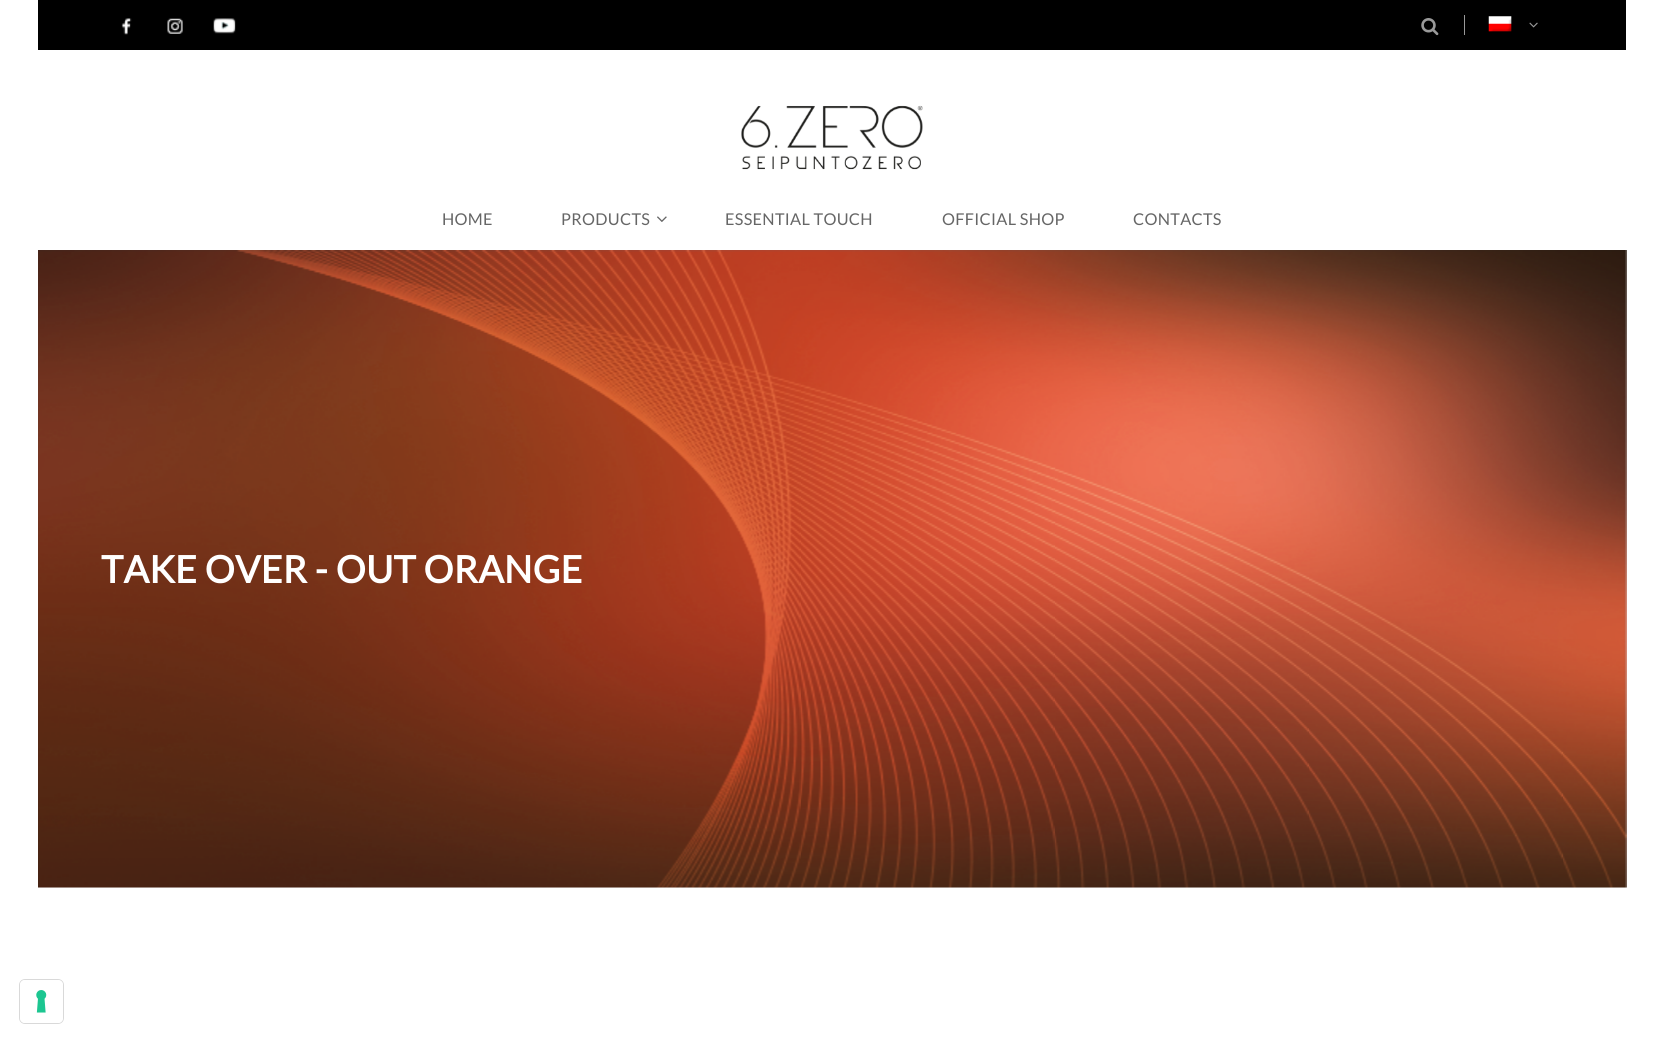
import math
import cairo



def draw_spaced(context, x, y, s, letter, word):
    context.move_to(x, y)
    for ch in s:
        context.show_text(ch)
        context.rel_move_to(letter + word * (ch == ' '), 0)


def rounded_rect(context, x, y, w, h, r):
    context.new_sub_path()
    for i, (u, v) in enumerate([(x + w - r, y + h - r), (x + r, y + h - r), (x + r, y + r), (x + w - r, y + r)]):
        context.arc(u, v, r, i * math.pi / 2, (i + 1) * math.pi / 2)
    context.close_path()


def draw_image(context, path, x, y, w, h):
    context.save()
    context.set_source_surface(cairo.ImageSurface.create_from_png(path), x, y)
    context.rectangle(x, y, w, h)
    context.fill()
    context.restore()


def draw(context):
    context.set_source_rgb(1, 1, 1)
    context.paint()
    context.set_source_rgb(0, 0, 0)
    context.rectangle(38, 0, 1588, 50)
    context.fill()
    draw_image(context, "images/1.png", 101, 18, 49, 32)
    draw_image(context, "images/2.png", 150, 18, 49, 32)
    draw_image(context, "images/3.png", 198, 18, 50, 32)
    draw_image(context, "images/4.png", 1421, 18, 18, 18)
    context.set_source_rgb(153 / 255, 153 / 255, 153 / 255)
    context.rectangle(1464, 15, 1, 20)
    context.fill()
    draw_image(context, "images/5.png", 1488, 16, 24, 16)
    draw_image(context, "images/6.png", 1529, 22, 9, 6)
    draw_image(context, "images/7.png", 741, 105, 182, 65)
    draw_image(context, "images/8.png", 657, 216, 10, 6)
    context.set_source_rgb(246 / 255, 246 / 255, 246 / 255)
    context.rectangle(38, 250, 1588, 638)
    context.fill()
    draw_image(context, "images/9.png", 38, 250, 1589, 638)
    rounded_rect(context, 19.5, 979.5, 44, 44, 5.5)
    context.set_source_rgb(217 / 255, 217 / 255, 217 / 255)
    context.set_line_width(1)
    context.stroke()
    context.set_source_rgb(1, 1, 1)
    rounded_rect(context, 20, 980, 43, 43, 5)
    context.fill()
    draw_image(context, "images/10.png", 36, 990, 11, 23)
    context.select_font_face("Lato")
    context.set_font_size(16.25)
    context.set_source_rgb(102 / 255, 102 / 255, 102 / 255)
    draw_spaced(context, 442, 225, "HOME", 0.3, 0)
    draw_spaced(context, 561, 225, "PRODUCTS", 0.3, 0)
    draw_spaced(context, 725, 225, "ESSENTIAL TOUCH", 0.3, 0)
    draw_spaced(context, 942, 225, "OFFICIAL SHOP", 0.3, 0)
    draw_spaced(context, 1133, 225, "CONTACTS", 0.3, 0)
    context.select_font_face("Lato", cairo.FontSlant.NORMAL, cairo.FontWeight.BOLD)
    context.set_font_size(37.5)
    context.set_source_rgb(1, 1, 1)
    draw_spaced(context, 101, 583, "TAKE OVER - OUT ORANGE", 0.3, 0)


surface = cairo.ImageSurface(cairo.Format.RGB24, 1663, 1042)
context = cairo.Context(surface)
options = cairo.FontOptions()
options.set_hint_metrics(cairo.HintMetrics.OFF)
options.set_hint_style(cairo.HintStyle.NONE)
context.set_font_options(options)
context.set_miter_limit(4)
draw(context)
surface.write_to_png("out.png")
